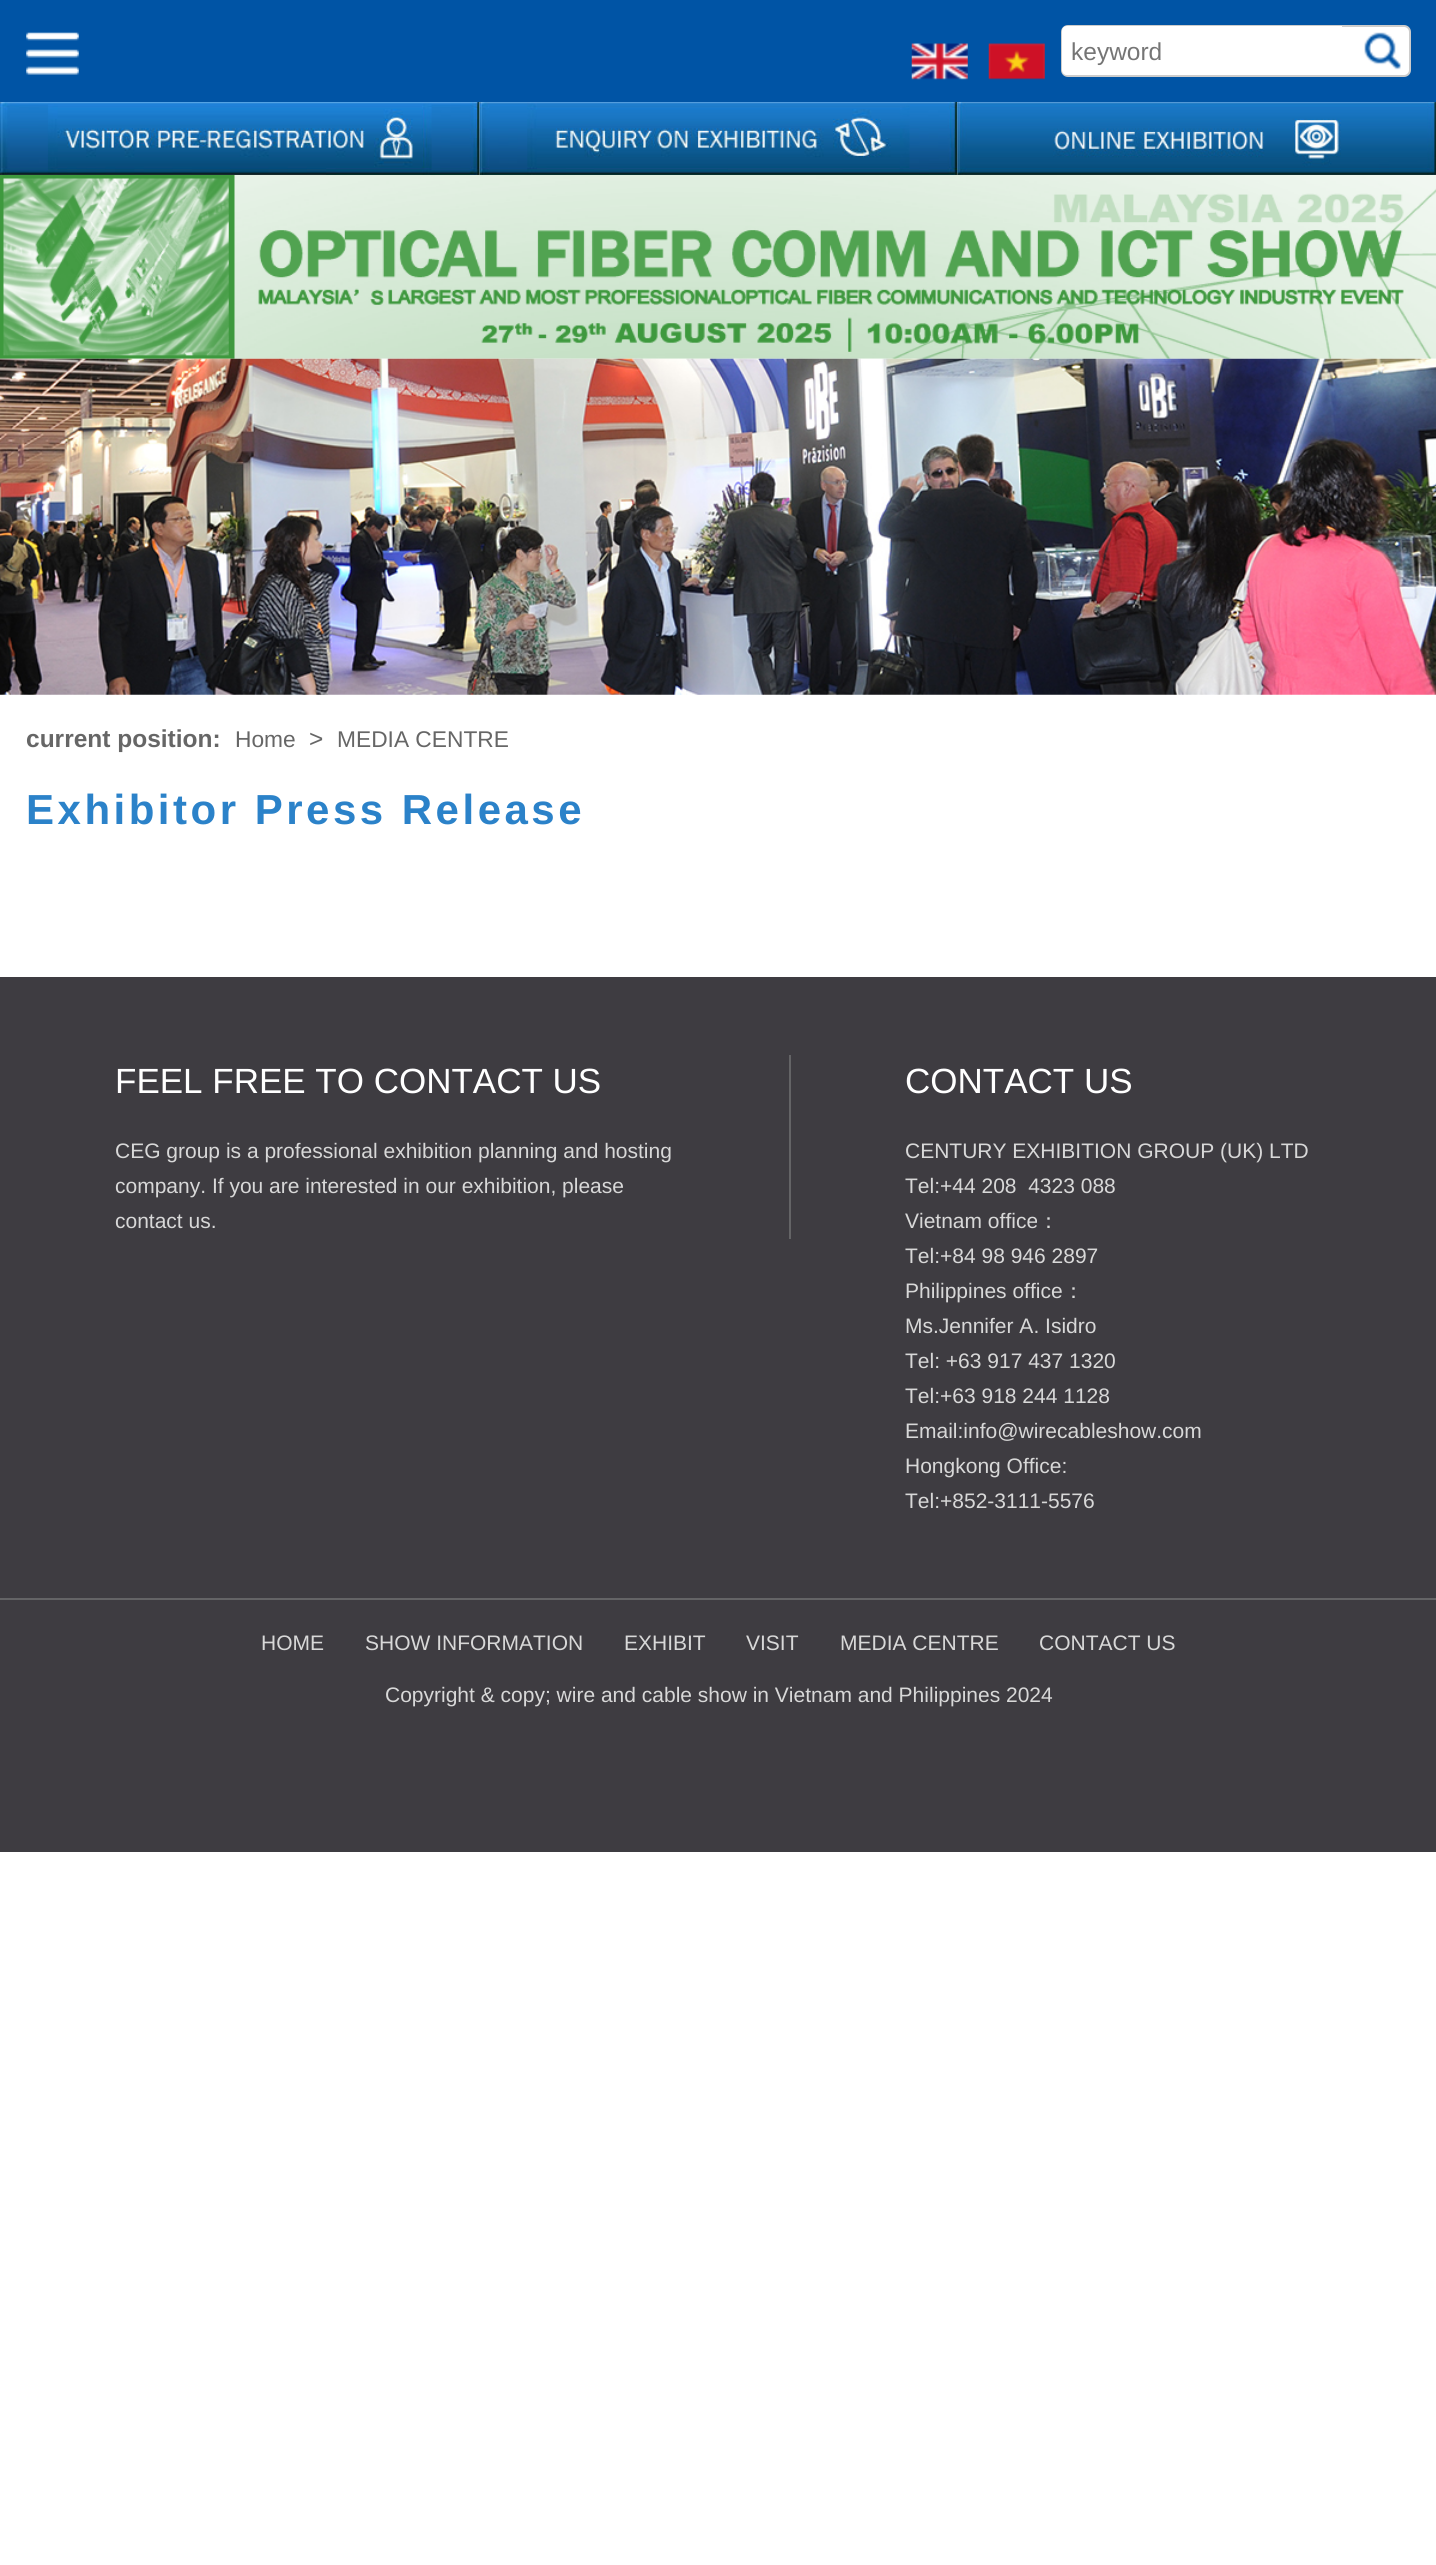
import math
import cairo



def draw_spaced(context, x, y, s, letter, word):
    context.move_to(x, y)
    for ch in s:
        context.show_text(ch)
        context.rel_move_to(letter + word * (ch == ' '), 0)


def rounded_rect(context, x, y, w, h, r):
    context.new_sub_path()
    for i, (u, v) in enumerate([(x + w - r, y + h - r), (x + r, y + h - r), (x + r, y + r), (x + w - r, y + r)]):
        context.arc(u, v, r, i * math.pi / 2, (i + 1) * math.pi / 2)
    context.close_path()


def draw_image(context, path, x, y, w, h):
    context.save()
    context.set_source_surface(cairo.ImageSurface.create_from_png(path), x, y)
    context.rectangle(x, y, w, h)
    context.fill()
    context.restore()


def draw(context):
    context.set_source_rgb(1, 1, 1)
    context.paint()
    context.set_source_rgb(0, 84 / 255, 165 / 255)
    context.rectangle(0, 0, 1436, 102)
    context.fill()
    draw_image(context, "images/1.png", 26, 32, 53, 43)
    draw_image(context, "images/2.png", 911, 43, 57, 37)
    draw_image(context, "images/3.png", 988, 43, 57, 37)
    context.set_source_rgb(1, 1, 1)
    rounded_rect(context, 1062, 26, 348, 50, 6)
    context.fill_preserve()
    context.set_source_rgb(204 / 255, 204 / 255, 204 / 255)
    context.stroke()
    context.set_source_rgb(1, 1, 1)
    context.new_path()
    context.move_to(1067, 26)
    context.line_to(1342, 26)
    context.line_to(1342, 75)
    context.line_to(1067, 75)
    context.curve_to(1064, 75, 1062, 73, 1062, 70)
    context.line_to(1062, 31)
    context.curve_to(1062, 28, 1064, 26, 1067, 26)
    context.close_path()
    context.fill()
    draw_image(context, "images/4.png", 1364, 32, 37, 38)
    draw_image(context, "images/5.png", 0, 102, 480, 73)
    draw_image(context, "images/6.png", 479, 102, 479, 73)
    draw_image(context, "images/7.png", 957, 102, 479, 73)
    draw_image(context, "images/8.png", 0, 175, 1436, 184)
    draw_image(context, "images/9.png", 0, 358, 1436, 337)
    context.set_source_rgb(62 / 255, 60 / 255, 65 / 255)
    context.rectangle(0, 977, 1436, 875)
    context.fill()
    context.set_source_rgb(100 / 255, 100 / 255, 102 / 255)
    context.rectangle(789, 1055, 2, 184)
    context.fill()
    context.rectangle(0, 1598, 1436, 2)
    context.fill()
    context.select_font_face("Liberation Sans")
    context.set_font_size(24.5)
    context.set_source_rgb(117 / 255, 117 / 255, 117 / 255)
    context.move_to(1071, 60)
    context.show_text("keyword")
    context.select_font_face("Liberation Sans", cairo.FontSlant.NORMAL, cairo.FontWeight.BOLD)
    context.set_source_rgb(102 / 255, 102 / 255, 102 / 255)
    context.move_to(26, 747)
    context.show_text("current position:")
    context.select_font_face("Liberation Sans")
    context.set_font_size(22.75)
    context.move_to(235, 747)
    context.show_text("Home")
    context.set_font_size(24.5)
    context.move_to(309, 747)
    context.show_text(">")
    context.set_font_size(22.75)
    context.move_to(337, 747)
    context.show_text("MEDIA CENTRE")
    context.select_font_face("Liberation Sans", cairo.FontSlant.NORMAL, cairo.FontWeight.BOLD)
    context.set_font_size(42)
    context.set_source_rgb(43 / 255, 130 / 255, 201 / 255)
    draw_spaced(context, 26, 824, "Exhibitor Press Release", 3.5, 0)
    context.select_font_face("Liberation Sans")
    context.set_font_size(35)
    context.set_source_rgb(1, 1, 1)
    context.move_to(115, 1093)
    context.show_text("FEEL FREE TO CONTACT US")
    context.set_font_size(21)
    context.set_source_rgb(216 / 255, 216 / 255, 216 / 255)
    context.move_to(115, 1158)
    context.show_text("CEG group is a professional exhibition planning and hosting")
    context.move_to(115, 1193)
    context.show_text("company. If you are interested in our exhibition, please")
    context.move_to(115, 1228)
    context.show_text("contact us.")
    context.set_font_size(35)
    context.set_source_rgb(1, 1, 1)
    context.move_to(905, 1093)
    context.show_text("CONTACT US")
    context.set_font_size(21)
    context.set_source_rgb(216 / 255, 216 / 255, 216 / 255)
    context.move_to(905, 1158)
    context.show_text("CENTURY EXHIBITION GROUP (UK) LTD")
    context.move_to(905, 1193)
    context.show_text("Tel:+44 208  4323 088")
    context.move_to(905, 1228)
    context.show_text("Vietnam office")
    context.select_font_face("WenQuanYi Zen Hei Medium")
    context.move_to(1038, 1228)
    context.show_text("：")
    context.select_font_face("Liberation Sans")
    context.move_to(905, 1263)
    context.show_text("Tel:+84 98 946 2897")
    context.move_to(905, 1298)
    context.show_text("Philippines office")
    context.select_font_face("WenQuanYi Zen Hei Medium")
    context.move_to(1063, 1298)
    context.show_text("：")
    context.select_font_face("Liberation Sans")
    context.move_to(905, 1333)
    context.show_text("Ms.Jennifer A. Isidro")
    context.move_to(905, 1368)
    context.show_text("Tel: +63 917 437 1320")
    context.move_to(905, 1403)
    context.show_text("Tel:+63 918 244 1128")
    context.move_to(905, 1438)
    context.show_text("Email:info@wirecableshow.com")
    context.move_to(905, 1473)
    context.show_text("Hongkong Office:")
    context.move_to(905, 1508)
    context.show_text("Tel:+852-3111-5576")
    context.move_to(261, 1650)
    context.show_text("HOME")
    context.move_to(365, 1650)
    context.show_text("SHOW INFORMATION")
    context.move_to(624, 1650)
    context.show_text("EXHIBIT")
    context.move_to(746, 1650)
    context.show_text("VISIT")
    context.move_to(840, 1650)
    context.show_text("MEDIA CENTRE")
    context.move_to(1039, 1650)
    context.show_text("CONTACT US")
    context.move_to(385, 1702)
    context.show_text("Copyright & copy; wire and cable show in Vietnam and Philippines 2024")


surface = cairo.ImageSurface(cairo.Format.RGB24, 1436, 2565)
context = cairo.Context(surface)
options = cairo.FontOptions()
options.set_hint_metrics(cairo.HintMetrics.OFF)
options.set_hint_style(cairo.HintStyle.NONE)
context.set_font_options(options)
context.set_miter_limit(4)
draw(context)
surface.write_to_png("out.png")
